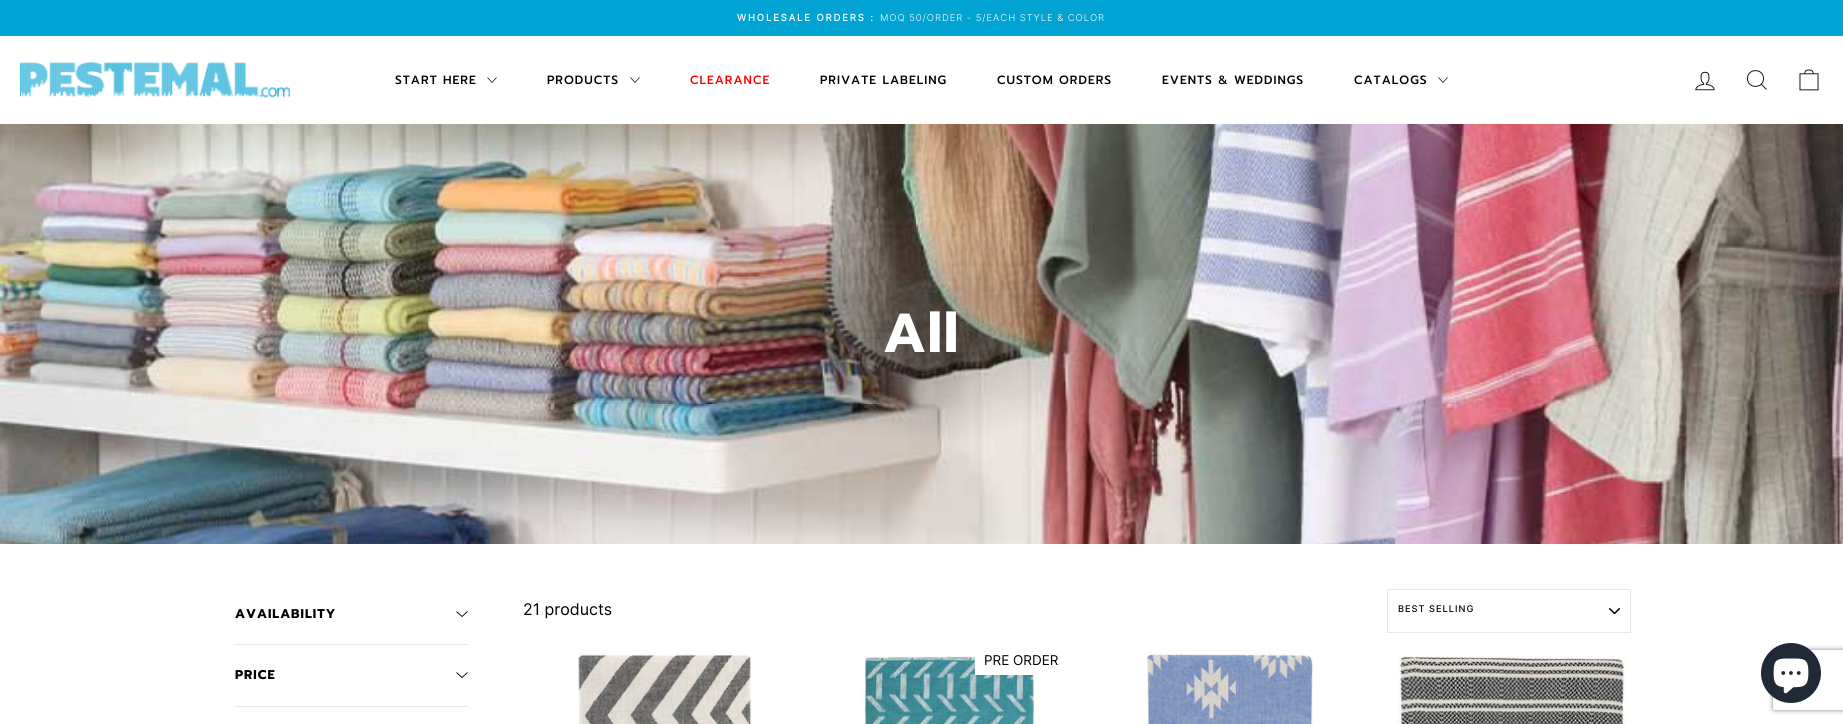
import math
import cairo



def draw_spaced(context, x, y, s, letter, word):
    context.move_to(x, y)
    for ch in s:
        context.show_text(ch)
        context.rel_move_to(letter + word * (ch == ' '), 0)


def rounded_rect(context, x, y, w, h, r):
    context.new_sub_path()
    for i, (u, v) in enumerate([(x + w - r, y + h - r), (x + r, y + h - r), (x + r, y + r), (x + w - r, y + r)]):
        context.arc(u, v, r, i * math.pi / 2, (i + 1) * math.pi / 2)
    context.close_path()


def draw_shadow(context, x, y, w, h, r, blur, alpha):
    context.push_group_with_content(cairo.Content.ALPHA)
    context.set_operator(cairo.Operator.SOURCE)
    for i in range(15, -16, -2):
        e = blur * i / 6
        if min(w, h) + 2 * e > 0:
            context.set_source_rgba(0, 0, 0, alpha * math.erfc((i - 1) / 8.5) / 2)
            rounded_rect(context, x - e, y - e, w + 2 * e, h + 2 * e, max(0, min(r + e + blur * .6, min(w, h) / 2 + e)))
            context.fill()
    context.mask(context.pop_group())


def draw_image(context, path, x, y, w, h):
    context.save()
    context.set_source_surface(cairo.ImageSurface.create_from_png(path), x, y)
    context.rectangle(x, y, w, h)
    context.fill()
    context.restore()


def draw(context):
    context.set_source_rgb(1, 1, 1)
    context.paint()
    context.set_source_rgb(0, 163 / 255, 210 / 255)
    context.rectangle(0, 0, 1843, 36)
    context.fill()
    draw_image(context, "images/1.png", 20, 62, 270, 36)
    context.new_path()
    context.move_to(487.5, 77.5)
    context.line_to(492, 82.5)
    context.line_to(496.5, 77.5)
    context.set_source_rgb(0, 0, 0)
    context.set_line_width(0.7)
    context.stroke()
    context.new_path()
    context.move_to(630.5, 77.5)
    context.line_to(635, 82.5)
    context.line_to(639.5, 77.5)
    context.stroke()
    context.new_path()
    context.move_to(1438.5, 77.5)
    context.line_to(1443, 82.5)
    context.line_to(1447.5, 77.5)
    context.stroke()
    draw_image(context, "images/2.png", 1695, 71, 20, 20)
    context.new_path()
    context.move_to(1763.5, 78.5)
    context.curve_to(1763.5, 89, 1747.5, 89, 1747.5, 78.5)
    context.curve_to(1747.5, 68, 1763.5, 68, 1763.5, 78.5)
    context.close_path()
    context.move_to(1766.5, 89.5)
    context.line_to(1761.5, 84.5)
    context.set_line_width(0.9)
    context.stroke()
    draw_image(context, "images/3.png", 1799, 69, 20, 22)
    draw_image(context, "images/4.png", 0, 124, 1843, 420)
    context.new_path()
    context.move_to(456.5, 611.5)
    context.line_to(462, 616.5)
    context.line_to(467.5, 611.5)
    context.stroke()
    context.set_source_rgb(232 / 255, 232 / 255, 225 / 255)
    context.rectangle(235, 644, 233, 1)
    context.fill()
    context.new_path()
    context.move_to(456.5, 672.5)
    context.line_to(462, 677.5)
    context.line_to(467.5, 672.5)
    context.set_source_rgb(0, 0, 0)
    context.stroke()
    context.set_source_rgb(232 / 255, 232 / 255, 225 / 255)
    context.rectangle(235, 706, 233, 1)
    context.fill()
    draw_image(context, "images/5.png", 1609, 608, 11, 6)
    context.rectangle(1387.5, 589.5, 243, 43)
    context.set_line_width(1)
    context.stroke()
    draw_image(context, "images/6.png", 577, 652, 175, 72)
    draw_image(context, "images/7.png", 860, 655, 178, 69)
    context.set_source_rgb(1, 1, 1)
    context.rectangle(975, 655, 63, 20)
    context.fill()
    draw_image(context, "images/8.png", 1147, 648, 166, 76)
    draw_image(context, "images/9.png", 1397, 656, 230, 68)
    context.save()
    context.set_fill_rule(cairo.FillRule.EVEN_ODD)
    context.new_path()
    context.move_to(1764, 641)
    context.line_to(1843, 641)
    context.line_to(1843, 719)
    context.line_to(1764, 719)
    context.close_path()
    context.move_to(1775, 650)
    context.line_to(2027, 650)
    context.curve_to(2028, 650, 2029, 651, 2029, 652)
    context.line_to(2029, 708)
    context.curve_to(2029, 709, 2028, 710, 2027, 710)
    context.line_to(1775, 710)
    context.curve_to(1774, 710, 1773, 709, 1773, 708)
    context.line_to(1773, 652)
    context.curve_to(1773, 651, 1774, 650, 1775, 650)
    context.close_path()
    context.clip()
    context.set_source_rgb(128 / 255, 128 / 255, 128 / 255)
    draw_shadow(context, 1773, 650, 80, 60, 2, 2.5, 1)
    context.restore()
    context.set_source_rgb(32 / 255, 42 / 255, 54 / 255)
    context.arc(1791, 673, 30, 0, 2 * math.pi)
    context.fill()
    draw_image(context, "images/10.png", 1773, 658, 36, 36)
    context.select_font_face("Inter", cairo.FontSlant.NORMAL, cairo.FontWeight.BOLD)
    context.set_font_size(9.5)
    context.set_source_rgb(1, 1, 1)
    draw_spaced(context, 737, 21, "WHOLESALE ORDERS :", 1.9, 0)
    context.select_font_face("Inter Light")
    draw_spaced(context, 880, 21, "MOQ 50/ORDER - 5/EACH STYLE & COLOR", 0.95, 0)
    context.select_font_face("Prompt Medium")
    context.set_font_size(12)
    context.set_source_rgb(0, 0, 0)
    draw_spaced(context, 395, 84, "START HERE", 1, 0)
    draw_spaced(context, 547, 84, "PRODUCTS", 1, 0)
    context.set_source_rgb(1, 0, 0)
    draw_spaced(context, 690, 84, "CLEARANCE", 1, 0)
    context.set_source_rgb(0, 0, 0)
    draw_spaced(context, 820, 84, "PRIVATE LABELING", 1, 0)
    draw_spaced(context, 997, 84, "CUSTOM ORDERS", 1, 0)
    draw_spaced(context, 1162, 84, "EVENTS & WEDDINGS", 1, 0)
    draw_spaced(context, 1354, 84, "CATALOGS", 1, 0)
    context.select_font_face("Prompt", cairo.FontSlant.NORMAL, cairo.FontWeight.BOLD)
    context.set_font_size(55)
    context.set_source_rgb(1, 1, 1)
    draw_spaced(context, 883, 352, "All", 1.5, 0)
    context.set_font_size(12.75)
    context.set_source_rgb(0, 0, 0)
    draw_spaced(context, 235, 618, "AVAILABILITY", 1, 0)
    draw_spaced(context, 235, 679, "PRICE", 1, 0)
    context.select_font_face("Inter")
    context.set_font_size(16)
    context.move_to(523, 615)
    context.show_text("21 products")
    context.select_font_face("Inter Medium")
    context.set_font_size(9.25)
    draw_spaced(context, 1398, 612, "BEST SELLING", 1, 0)
    context.select_font_face("Inter")
    context.set_font_size(13.5)
    context.move_to(984, 665)
    context.show_text("PRE ORDER")


surface = cairo.ImageSurface(cairo.Format.RGB24, 1843, 724)
context = cairo.Context(surface)
options = cairo.FontOptions()
options.set_hint_metrics(cairo.HintMetrics.OFF)
options.set_hint_style(cairo.HintStyle.NONE)
context.set_font_options(options)
context.set_miter_limit(4)
draw(context)
surface.write_to_png("out.png")
